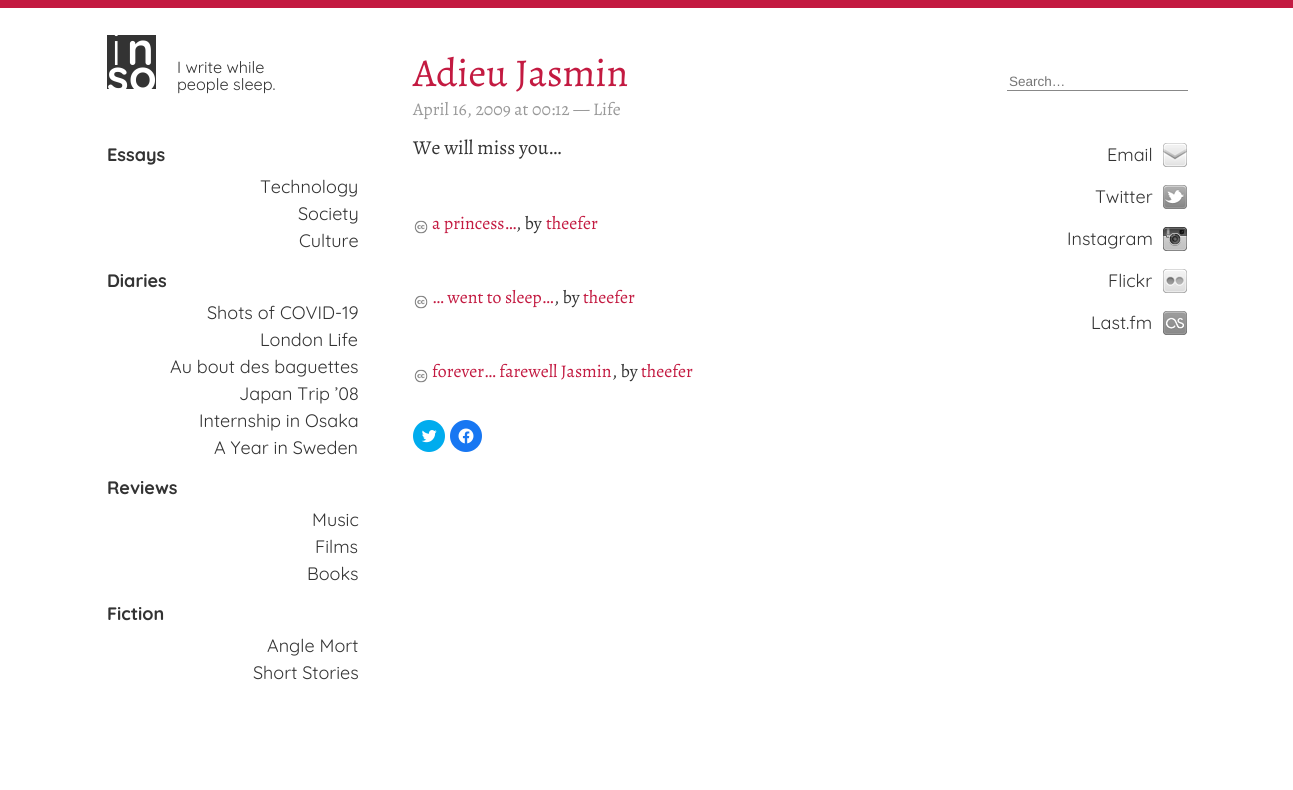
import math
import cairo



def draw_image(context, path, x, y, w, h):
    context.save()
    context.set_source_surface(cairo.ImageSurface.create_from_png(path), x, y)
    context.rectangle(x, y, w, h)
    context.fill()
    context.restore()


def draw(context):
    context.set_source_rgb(1, 1, 1)
    context.paint()
    context.set_source_rgb(195 / 255, 26 / 255, 65 / 255)
    context.rectangle(0, 0, 1293, 8)
    context.fill()
    context.set_source_rgb(51 / 255, 51 / 255, 51 / 255)
    context.rectangle(107, 35, 49, 54)
    context.fill()
    draw_image(context, "images/1.png", 414, 220, 14, 14)
    draw_image(context, "images/1.png", 414, 295, 14, 14)
    draw_image(context, "images/1.png", 414, 369, 14, 14)
    context.set_source_rgb(0, 172 / 255, 238 / 255)
    context.arc(429, 436, 16, 0, 2 * math.pi)
    context.fill()
    draw_image(context, "images/2.png", 421, 430, 16, 13)
    context.set_source_rgb(24 / 255, 119 / 255, 242 / 255)
    context.arc(466, 436, 16, 0, 2 * math.pi)
    context.fill()
    draw_image(context, "images/3.png", 458, 428, 16, 16)
    context.set_source_rgb(136 / 255, 136 / 255, 136 / 255)
    context.rectangle(1007, 90, 181, 1)
    context.fill()
    draw_image(context, "images/4.png", 1163, 143, 24, 24)
    draw_image(context, "images/5.png", 1163, 185, 24, 24)
    draw_image(context, "images/6.png", 1163, 227, 24, 24)
    draw_image(context, "images/7.png", 1163, 269, 24, 24)
    draw_image(context, "images/8.png", 1163, 311, 24, 24)
    context.save()
    context.rectangle(107, 35, 49, 54)
    context.clip()
    context.select_font_face("Noto Sans Light")
    context.set_font_size(45)
    context.set_source_rgb(1, 1, 1)
    context.move_to(111, 65)
    context.show_text("i")
    context.restore()
    context.select_font_face("Quicksand", cairo.FontSlant.NORMAL, cairo.FontWeight.BOLD)
    context.set_font_size(45)
    context.set_source_rgb(1, 1, 1)
    context.move_to(127, 65)
    context.show_text("n")
    context.save()
    context.rectangle(107, 35, 49, 54)
    context.clip()
    context.move_to(107, 92)
    context.show_text("so")
    context.restore()
    context.select_font_face("Quicksand")
    context.set_font_size(16.25)
    context.set_source_rgb(51 / 255, 51 / 255, 51 / 255)
    context.move_to(177, 73)
    context.show_text("I write while")
    context.move_to(177, 90)
    context.show_text("people sleep.")
    context.select_font_face("Quicksand", cairo.FontSlant.NORMAL, cairo.FontWeight.BOLD)
    context.set_font_size(18)
    context.move_to(107, 161)
    context.show_text("Essays")
    context.select_font_face("Quicksand")
    context.move_to(260, 193)
    context.show_text("Technology")
    context.move_to(298, 220)
    context.show_text("Society")
    context.move_to(299, 247)
    context.show_text("Culture")
    context.select_font_face("Quicksand", cairo.FontSlant.NORMAL, cairo.FontWeight.BOLD)
    context.move_to(107, 287)
    context.show_text("Diaries")
    context.select_font_face("Quicksand")
    context.move_to(207, 319)
    context.show_text("Shots of COVID-19")
    context.move_to(260, 346)
    context.show_text("London Life")
    context.move_to(170, 373)
    context.show_text("Au bout des baguettes")
    context.move_to(239, 400)
    context.show_text("Japan Trip ’08")
    context.move_to(199, 427)
    context.show_text("Internship in Osaka")
    context.move_to(214, 454)
    context.show_text("A Year in Sweden")
    context.select_font_face("Quicksand", cairo.FontSlant.NORMAL, cairo.FontWeight.BOLD)
    context.move_to(107, 494)
    context.show_text("Reviews")
    context.select_font_face("Quicksand")
    context.move_to(312, 526)
    context.show_text("Music")
    context.move_to(315, 553)
    context.show_text("Films")
    context.move_to(307, 580)
    context.show_text("Books")
    context.select_font_face("Quicksand", cairo.FontSlant.NORMAL, cairo.FontWeight.BOLD)
    context.move_to(107, 620)
    context.show_text("Fiction")
    context.select_font_face("Quicksand")
    context.move_to(267, 652)
    context.show_text("Angle Mort")
    context.move_to(253, 679)
    context.show_text("Short Stories")
    context.select_font_face("Alegreya")
    context.set_font_size(39.5)
    context.set_source_rgb(195 / 255, 26 / 255, 65 / 255)
    context.move_to(413, 86)
    context.show_text("Adieu Jasmin")
    context.set_font_size(17.75)
    context.set_source_rgb(153 / 255, 153 / 255, 153 / 255)
    context.move_to(413, 115)
    context.show_text("April 16, 2009 at 00:12 — Life")
    context.set_font_size(19.75)
    context.set_source_rgb(51 / 255, 51 / 255, 51 / 255)
    context.move_to(413, 154)
    context.show_text("We will miss you…")
    context.set_font_size(17.75)
    context.set_source_rgb(195 / 255, 26 / 255, 65 / 255)
    context.move_to(432, 229)
    context.show_text("a princess…")
    context.set_source_rgb(51 / 255, 51 / 255, 51 / 255)
    context.move_to(516, 229)
    context.show_text(", by")
    context.set_source_rgb(195 / 255, 26 / 255, 65 / 255)
    context.move_to(546, 229)
    context.show_text("theefer")
    context.move_to(432, 303)
    context.show_text("… went to sleep…")
    context.set_source_rgb(51 / 255, 51 / 255, 51 / 255)
    context.move_to(554, 303)
    context.show_text(", by")
    context.set_source_rgb(195 / 255, 26 / 255, 65 / 255)
    context.move_to(583, 303)
    context.show_text("theefer")
    context.move_to(432, 377)
    context.show_text("forever… farewell Jasmin")
    context.set_source_rgb(51 / 255, 51 / 255, 51 / 255)
    context.move_to(612, 377)
    context.show_text(", by")
    context.set_source_rgb(195 / 255, 26 / 255, 65 / 255)
    context.move_to(641, 377)
    context.show_text("theefer")
    context.select_font_face("Liberation Sans")
    context.set_font_size(13.5)
    context.set_source_rgb(117 / 255, 117 / 255, 117 / 255)
    context.move_to(1009, 86)
    context.show_text("Search…")
    context.select_font_face("Quicksand")
    context.set_font_size(18)
    context.set_source_rgb(51 / 255, 51 / 255, 51 / 255)
    context.move_to(1107, 161)
    context.show_text("Email")
    context.move_to(1095, 203)
    context.show_text("Twitter")
    context.move_to(1067, 245)
    context.show_text("Instagram")
    context.move_to(1108, 287)
    context.show_text("Flickr")
    context.move_to(1091, 329)
    context.show_text("Last.fm")


surface = cairo.ImageSurface(cairo.Format.RGB24, 1293, 790)
context = cairo.Context(surface)
options = cairo.FontOptions()
options.set_hint_metrics(cairo.HintMetrics.OFF)
options.set_hint_style(cairo.HintStyle.NONE)
context.set_font_options(options)
context.set_miter_limit(4)
draw(context)
surface.write_to_png("out.png")
